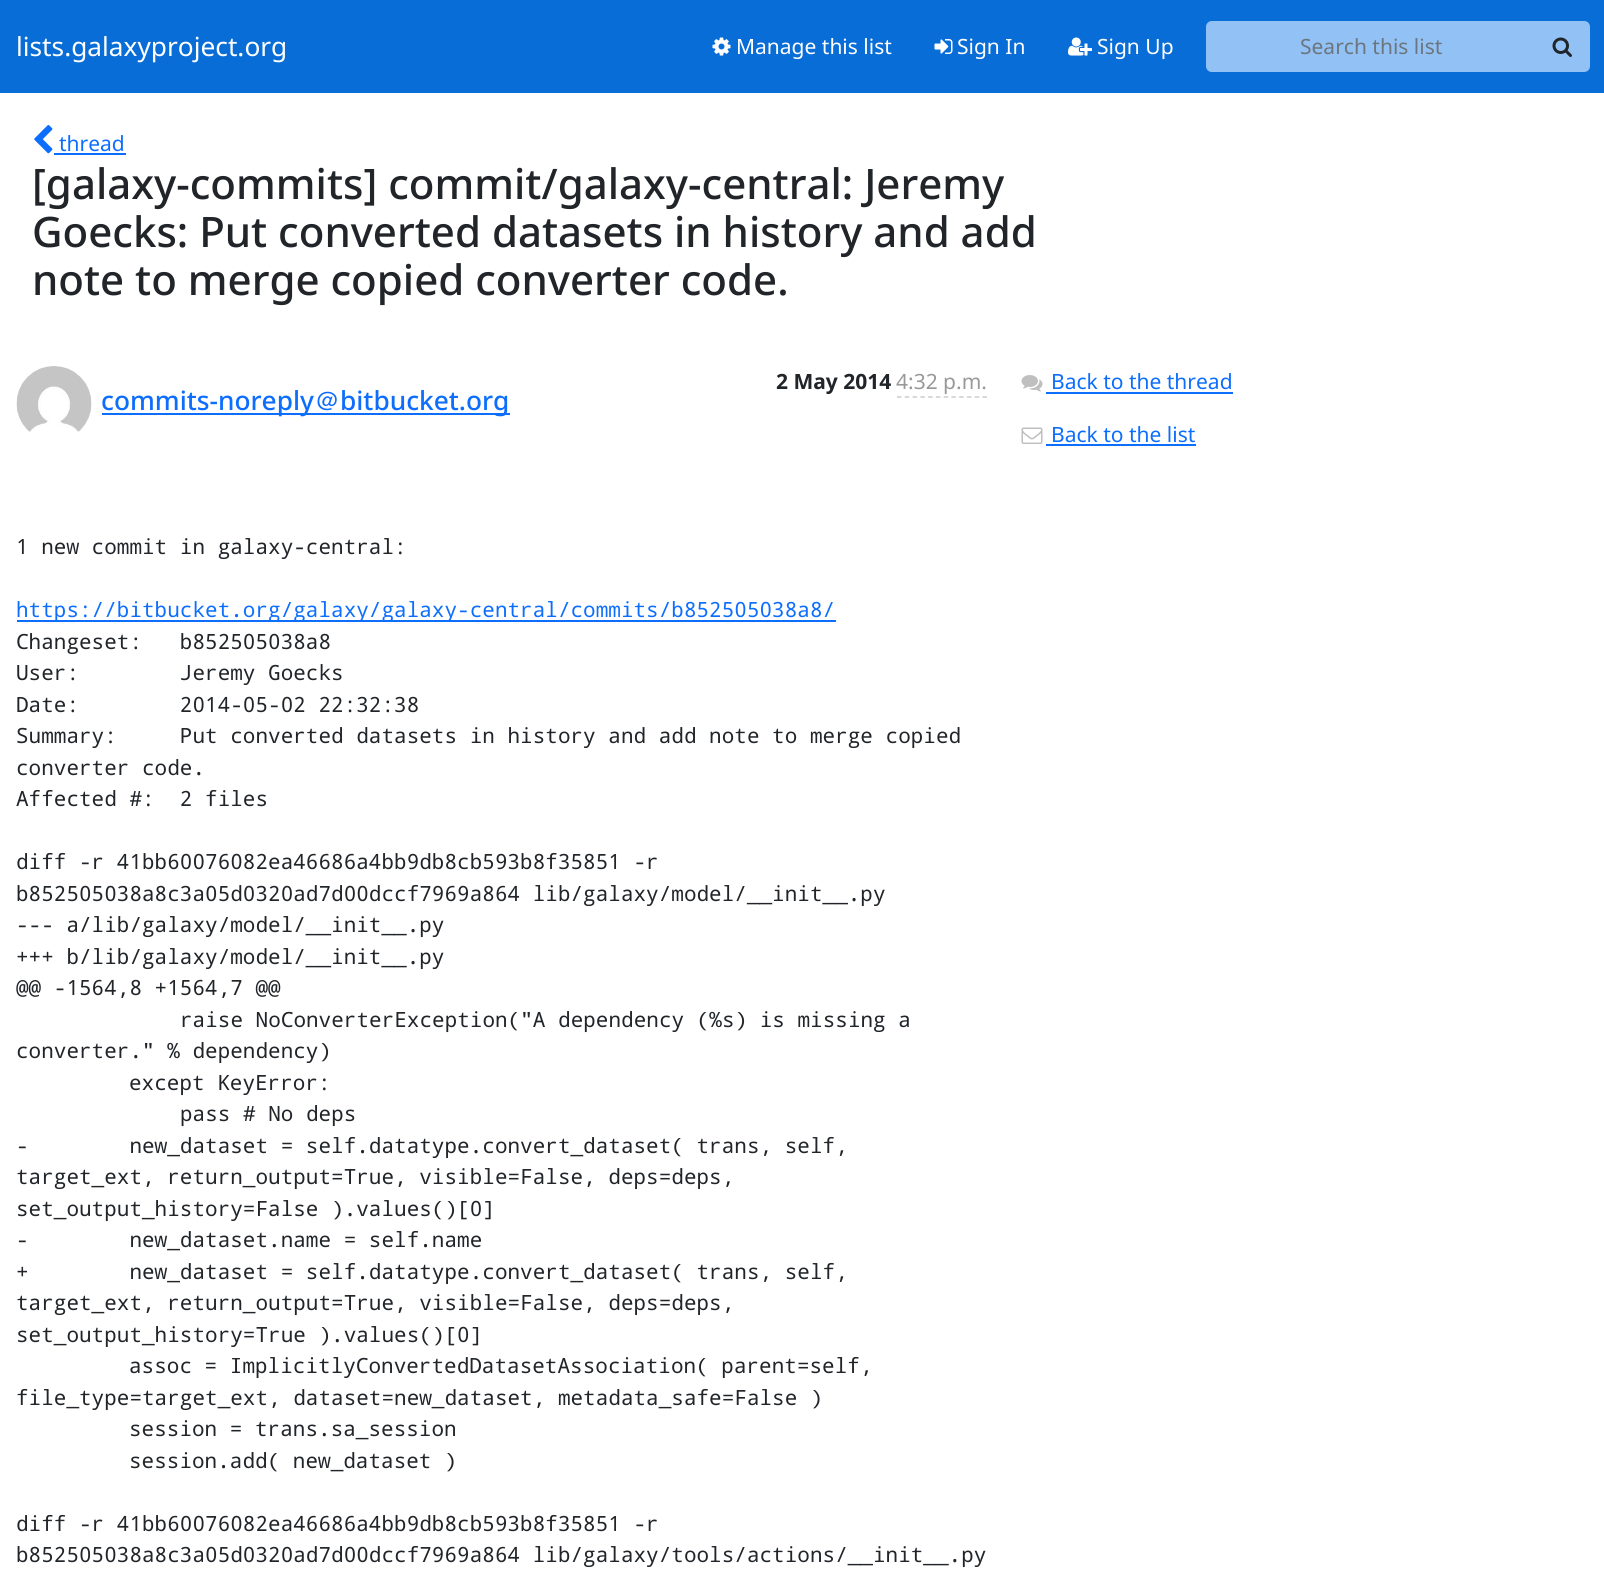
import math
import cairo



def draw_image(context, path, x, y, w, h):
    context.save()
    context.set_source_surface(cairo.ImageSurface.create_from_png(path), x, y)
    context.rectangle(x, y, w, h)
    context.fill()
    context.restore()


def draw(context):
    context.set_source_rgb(1, 1, 1)
    context.paint()
    context.set_source_rgb(8 / 255, 109 / 255, 215 / 255)
    context.rectangle(0, 0, 1604, 93)
    context.fill()
    draw_image(context, "images/1.png", 712, 37, 19, 19)
    draw_image(context, "images/2.png", 934, 39, 19, 15)
    draw_image(context, "images/3.png", 1068, 37, 24, 19)
    context.set_source_rgb(146 / 255, 194 / 255, 245 / 255)
    context.new_path()
    context.move_to(1212, 21)
    context.line_to(1538, 21)
    context.line_to(1538, 72)
    context.line_to(1212, 72)
    context.curve_to(1208.5, 72, 1206, 69.5, 1206, 66)
    context.line_to(1206, 27)
    context.curve_to(1206, 23.5, 1208.5, 21, 1212, 21)
    context.close_path()
    context.fill()
    context.new_path()
    context.move_to(1536, 21)
    context.line_to(1584, 21)
    context.curve_to(1587.5, 21, 1590, 23.5, 1590, 27)
    context.line_to(1590, 66)
    context.curve_to(1590, 69.5, 1587.5, 72, 1584, 72)
    context.line_to(1536, 72)
    context.close_path()
    context.fill()
    draw_image(context, "images/4.png", 1552, 37, 20, 20)
    draw_image(context, "images/5.png", 34, 125, 19, 29)
    context.set_source_rgb(13 / 255, 110 / 255, 253 / 255)
    context.rectangle(54, 153, 72, 2)
    context.fill()
    context.new_path()
    context.move_to(897, 397)
    context.line_to(987, 397)
    context.set_source_rgb(204 / 255, 204 / 255, 204 / 255)
    context.set_line_width(1.5)
    context.set_dash([4.5, 3.27])
    context.stroke()
    draw_image(context, "images/6.png", 16, 366, 76, 66)
    context.set_source_rgb(13 / 255, 110 / 255, 253 / 255)
    context.rectangle(102, 413, 408, 2)
    context.fill()
    context.rectangle(17, 620, 819, 2)
    context.fill()
    draw_image(context, "images/7.png", 1021, 375, 22, 17)
    context.rectangle(1046, 392, 187, 2)
    context.fill()
    draw_image(context, "images/8.png", 1021, 427, 22, 17)
    context.rectangle(1046, 444, 150, 2)
    context.fill()
    context.select_font_face("Noto Sans")
    context.set_font_size(26.25)
    context.set_source_rgb(1, 1, 1)
    context.move_to(16, 56)
    context.show_text("lists.galaxyproject.org")
    context.set_font_size(21)
    context.move_to(736, 54)
    context.show_text("Manage this list")
    context.move_to(957, 54)
    context.show_text("Sign In")
    context.move_to(1097, 54)
    context.show_text("Sign Up")
    context.set_source_rgb(108 / 255, 117 / 255, 125 / 255)
    context.move_to(1300, 54)
    context.show_text("Search this list")
    context.set_source_rgb(13 / 255, 110 / 255, 253 / 255)
    context.move_to(59, 151)
    context.show_text("thread")
    context.select_font_face("Noto Sans Medium")
    context.set_font_size(42)
    context.set_source_rgb(33 / 255, 37 / 255, 41 / 255)
    context.move_to(32, 199)
    context.show_text("[galaxy-commits] commit/galaxy-central: Jeremy")
    context.move_to(32, 247)
    context.show_text("Goecks: Put converted datasets in history and add")
    context.move_to(32, 295)
    context.show_text("note to merge copied converter code.")
    context.select_font_face("Noto Sans", cairo.FontSlant.NORMAL, cairo.FontWeight.BOLD)
    context.set_font_size(21)
    context.move_to(776, 389)
    context.show_text("2 May 2014")
    context.select_font_face("Noto Sans")
    context.set_source_rgb(153 / 255, 153 / 255, 153 / 255)
    context.move_to(896, 389)
    context.show_text("4:32 p.m.")
    context.select_font_face("Noto Sans Medium")
    context.set_font_size(26.25)
    context.set_source_rgb(13 / 255, 110 / 255, 253 / 255)
    context.move_to(101, 410)
    context.show_text("commits-noreply")
    context.select_font_face("WenQuanYi Zen Hei Medium")
    context.move_to(314, 410)
    context.show_text("＠")
    context.select_font_face("Noto Sans Medium")
    context.move_to(340, 410)
    context.show_text("bitbucket.org")
    context.select_font_face("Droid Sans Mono")
    context.set_font_size(21)
    context.set_source_rgb(33 / 255, 37 / 255, 41 / 255)
    context.move_to(16, 554)
    context.show_text("1 new commit in galaxy-central:")
    context.set_source_rgb(13 / 255, 110 / 255, 253 / 255)
    context.move_to(16, 617)
    context.show_text("https://bitbucket.org/galaxy/galaxy-central/commits/b852505038a8/")
    context.set_source_rgb(33 / 255, 37 / 255, 41 / 255)
    context.move_to(16, 649)
    context.show_text("Changeset:   b852505038a8")
    context.move_to(16, 680)
    context.show_text("User:        Jeremy Goecks")
    context.move_to(16, 712)
    context.show_text("Date:        2014-05-02 22:32:38")
    context.move_to(16, 743)
    context.show_text("Summary:     Put converted datasets in history and add note to merge copied")
    context.move_to(16, 775)
    context.show_text("converter code.")
    context.move_to(16, 806)
    context.show_text("Affected #:  2 files")
    context.move_to(16, 869)
    context.show_text("diff -r 41bb60076082ea46686a4bb9db8cb593b8f35851 -r")
    context.move_to(16, 901)
    context.show_text("b852505038a8c3a05d0320ad7d00dccf7969a864 lib/galaxy/model/__init__.py")
    context.move_to(16, 932)
    context.show_text("--- a/lib/galaxy/model/__init__.py")
    context.move_to(16, 964)
    context.show_text("+++ b/lib/galaxy/model/__init__.py")
    context.move_to(16, 995)
    context.show_text("@@ -1564,8 +1564,7 @@")
    context.move_to(180, 1027)
    context.show_text("raise NoConverterException(\"A dependency (%s) is missing a")
    context.move_to(16, 1058)
    context.show_text("converter.\" % dependency)")
    context.move_to(129, 1090)
    context.show_text("except KeyError:")
    context.move_to(180, 1121)
    context.show_text("pass # No deps")
    context.move_to(16, 1153)
    context.show_text("-        new_dataset = self.datatype.convert_dataset( trans, self,")
    context.move_to(16, 1184)
    context.show_text("target_ext, return_output=True, visible=False, deps=deps,")
    context.move_to(16, 1216)
    context.show_text("set_output_history=False ).values()[0]")
    context.move_to(16, 1247)
    context.show_text("-        new_dataset.name = self.name")
    context.move_to(16, 1279)
    context.show_text("+        new_dataset = self.datatype.convert_dataset( trans, self,")
    context.move_to(16, 1310)
    context.show_text("target_ext, return_output=True, visible=False, deps=deps,")
    context.move_to(16, 1342)
    context.show_text("set_output_history=True ).values()[0]")
    context.move_to(129, 1373)
    context.show_text("assoc = ImplicitlyConvertedDatasetAssociation( parent=self,")
    context.move_to(16, 1405)
    context.show_text("file_type=target_ext, dataset=new_dataset, metadata_safe=False )")
    context.move_to(129, 1436)
    context.show_text("session = trans.sa_session")
    context.move_to(129, 1468)
    context.show_text("session.add( new_dataset )")
    context.move_to(16, 1531)
    context.show_text("diff -r 41bb60076082ea46686a4bb9db8cb593b8f35851 -r")
    context.move_to(16, 1562)
    context.show_text("b852505038a8c3a05d0320ad7d00dccf7969a864 lib/galaxy/tools/actions/__init__.py")
    context.select_font_face("Noto Sans")
    context.set_source_rgb(13 / 255, 110 / 255, 253 / 255)
    context.move_to(1051, 389)
    context.show_text("Back to the thread")
    context.move_to(1051, 442)
    context.show_text("Back to the list")


surface = cairo.ImageSurface(cairo.Format.RGB24, 1604, 1589)
context = cairo.Context(surface)
options = cairo.FontOptions()
options.set_hint_metrics(cairo.HintMetrics.OFF)
options.set_hint_style(cairo.HintStyle.NONE)
context.set_font_options(options)
context.set_miter_limit(4)
draw(context)
surface.write_to_png("out.png")
